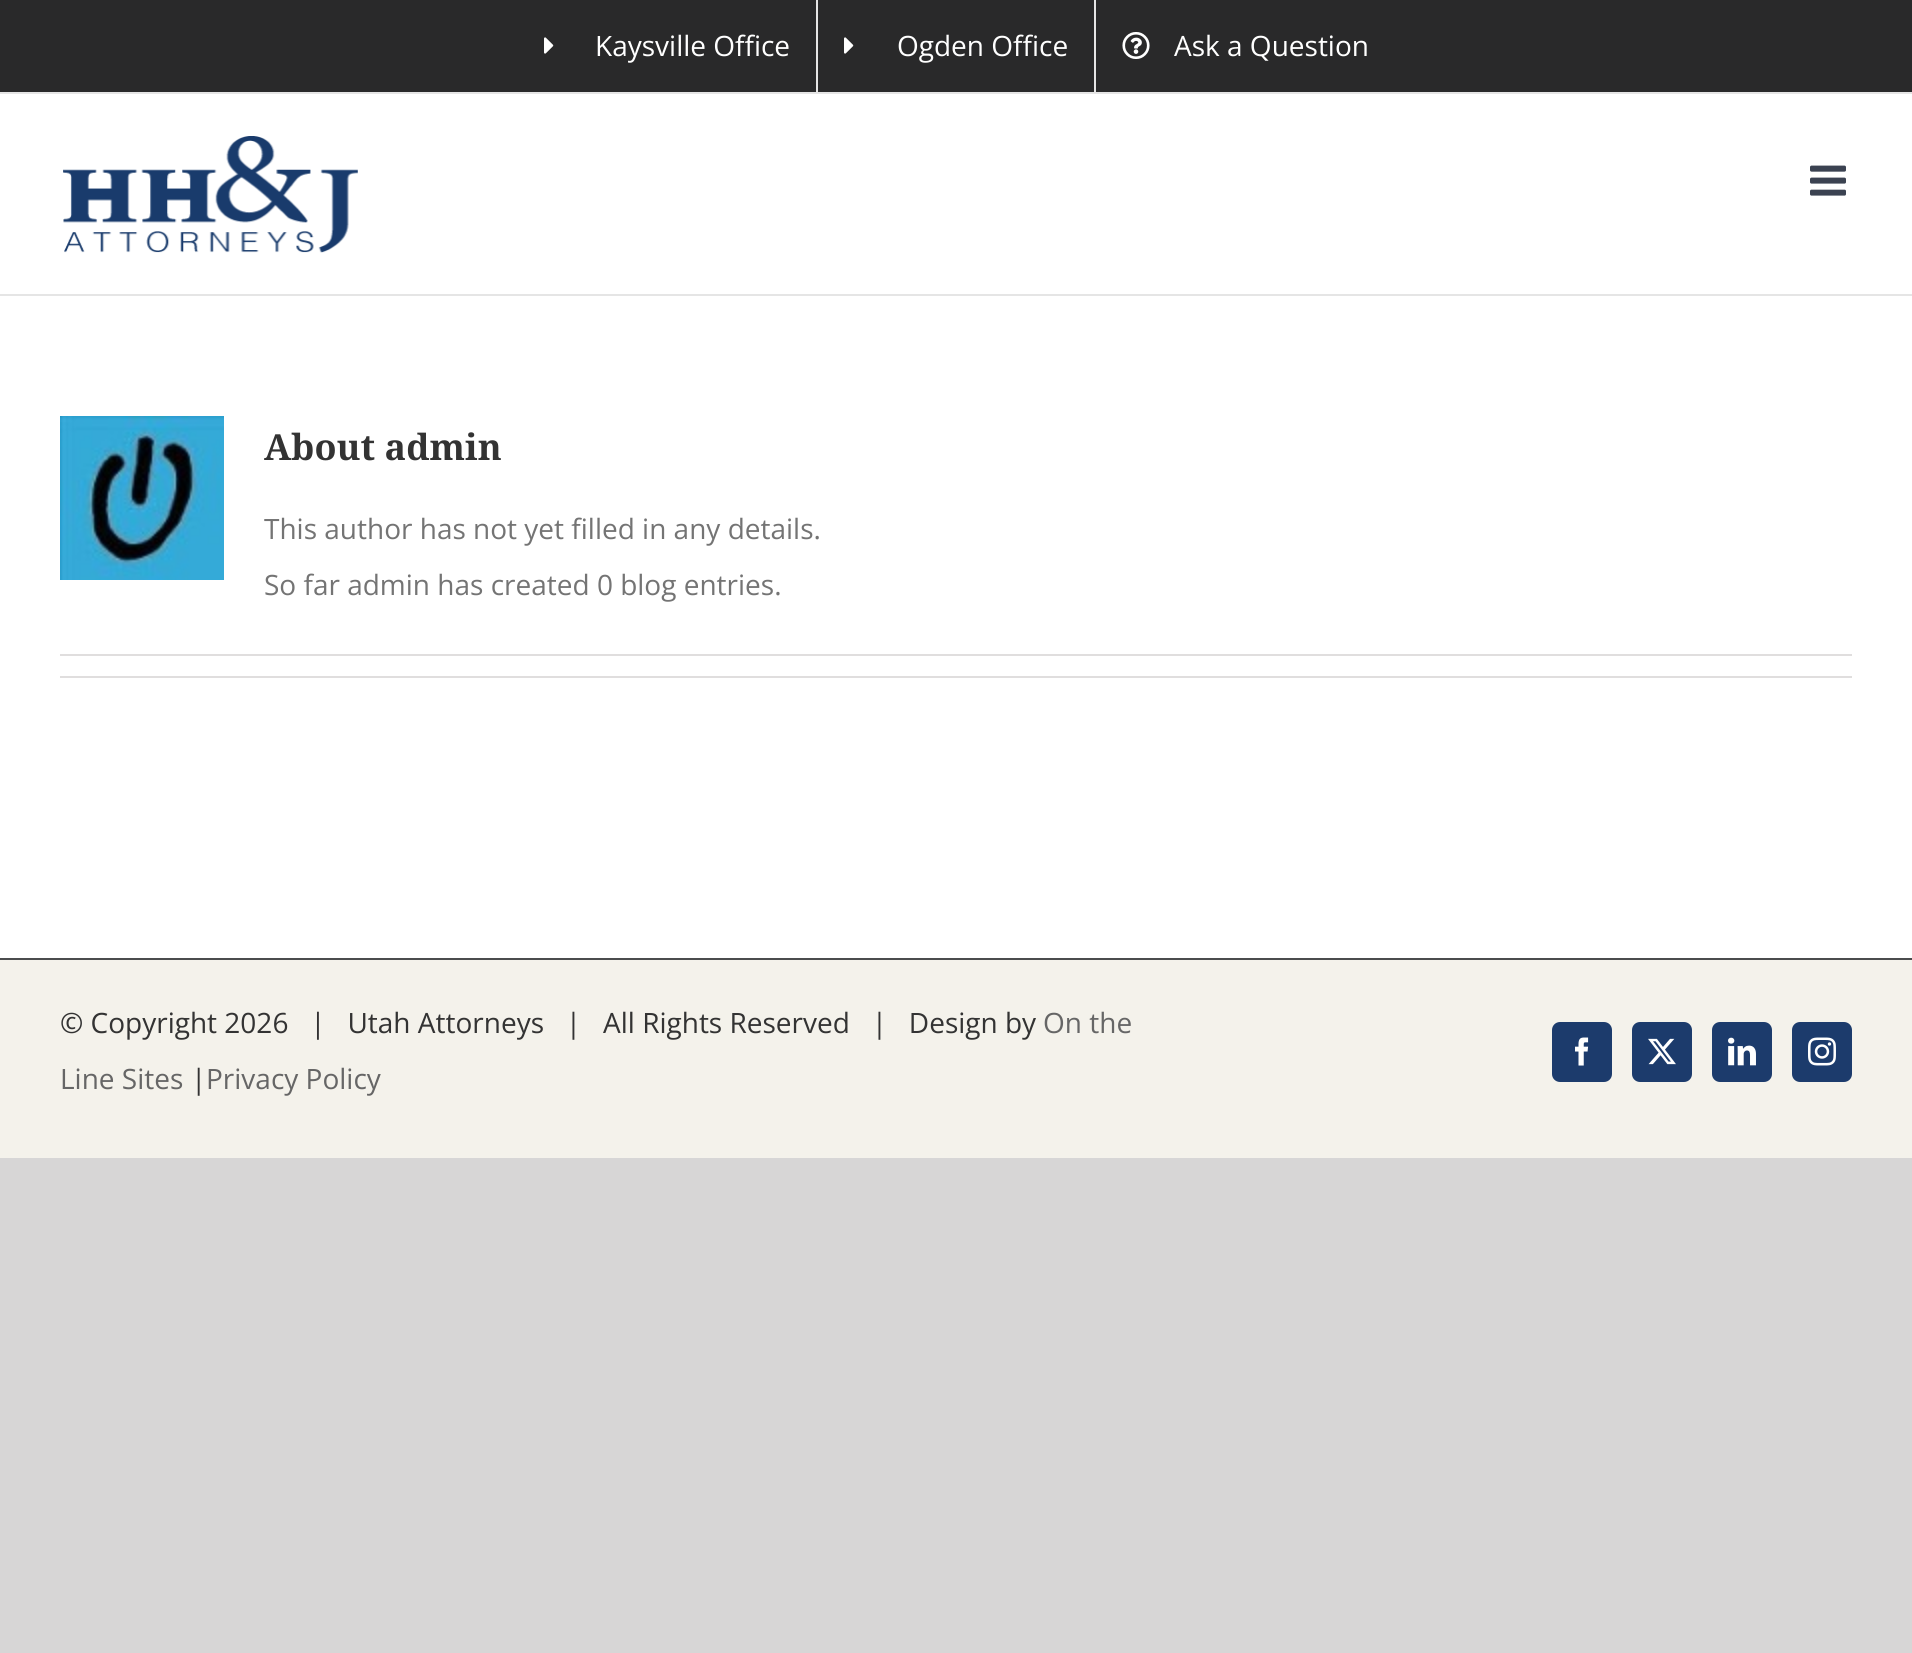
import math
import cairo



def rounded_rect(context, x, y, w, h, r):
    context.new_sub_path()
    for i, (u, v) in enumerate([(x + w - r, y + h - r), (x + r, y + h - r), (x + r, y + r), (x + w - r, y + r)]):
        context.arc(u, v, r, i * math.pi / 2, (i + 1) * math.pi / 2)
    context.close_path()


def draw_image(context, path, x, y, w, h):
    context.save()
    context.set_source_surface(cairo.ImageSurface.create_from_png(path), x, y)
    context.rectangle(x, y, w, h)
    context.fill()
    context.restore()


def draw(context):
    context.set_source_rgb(215 / 255, 214 / 255, 214 / 255)
    context.paint()
    context.set_source_rgb(1, 1, 1)
    context.rectangle(0, 94, 1912, 864)
    context.fill()
    context.set_source_rgb(41 / 255, 41 / 255, 42 / 255)
    context.rectangle(0, 0, 1912, 92)
    context.fill()
    context.set_source_rgb(229 / 255, 229 / 255, 229 / 255)
    context.rectangle(0, 92, 1912, 2)
    context.fill()
    draw_image(context, "images/1.png", 544, 37, 10, 17)
    context.rectangle(816, 0, 2, 92)
    context.fill()
    draw_image(context, "images/1.png", 844, 37, 10, 17)
    context.rectangle(1094, 0, 2, 92)
    context.fill()
    draw_image(context, "images/2.png", 1122, 32, 28, 27)
    context.rectangle(0, 294, 1912, 2)
    context.fill()
    draw_image(context, "images/3.png", 63, 136, 295, 117)
    draw_image(context, "images/4.png", 1810, 165, 36, 31)
    draw_image(context, "images/5.png", 60, 416, 164, 164)
    context.set_source_rgb(224 / 255, 222 / 255, 222 / 255)
    context.rectangle(60, 654, 1792, 2)
    context.fill()
    context.rectangle(60, 676, 1792, 2)
    context.fill()
    context.set_source_rgb(244 / 255, 242 / 255, 235 / 255)
    context.rectangle(0, 960, 1912, 198)
    context.fill()
    context.set_source_rgb(75 / 255, 76 / 255, 77 / 255)
    context.rectangle(0, 958, 1912, 2)
    context.fill()
    context.set_source_rgb(28 / 255, 59 / 255, 108 / 255)
    rounded_rect(context, 1553, 1023, 58, 58, 7)
    context.fill_preserve()
    context.stroke()
    draw_image(context, "images/6.png", 1575, 1037, 14, 29)
    rounded_rect(context, 1633, 1023, 58, 58, 7)
    context.fill_preserve()
    context.stroke()
    draw_image(context, "images/7.png", 1648, 1038, 28, 27)
    rounded_rect(context, 1713, 1023, 58, 58, 7)
    context.fill_preserve()
    context.stroke()
    draw_image(context, "images/8.png", 1728, 1037, 28, 29)
    rounded_rect(context, 1793, 1023, 58, 58, 7)
    context.fill_preserve()
    context.stroke()
    draw_image(context, "images/9.png", 1808, 1037, 28, 29)
    context.select_font_face("Open Sans")
    context.set_font_size(28)
    context.set_source_rgb(1, 1, 1)
    context.move_to(595, 56)
    context.show_text("Kaysville Office")
    context.move_to(897, 56)
    context.show_text("Ogden Office")
    context.move_to(1174, 56)
    context.show_text("Ask a Question")
    context.select_font_face("Noto Serif", cairo.FontSlant.NORMAL, cairo.FontWeight.BOLD)
    context.set_font_size(36)
    context.set_source_rgb(51 / 255, 51 / 255, 51 / 255)
    context.move_to(264, 460)
    context.show_text("About admin")
    context.select_font_face("Open Sans")
    context.set_font_size(28)
    context.set_source_rgb(116 / 255, 116 / 255, 116 / 255)
    context.move_to(264, 539)
    context.show_text("This author has not yet filled in any details.")
    context.move_to(264, 595)
    context.show_text("So far admin has created 0 blog entries.")
    context.set_source_rgb(51 / 255, 51 / 255, 51 / 255)
    context.move_to(60, 1033)
    context.show_text("© Copyright 2026   |   Utah Attorneys   |   All Rights Reserved   |   Design by")
    context.set_source_rgb(102 / 255, 102 / 255, 102 / 255)
    context.move_to(1043, 1033)
    context.show_text("On the")
    context.move_to(60, 1089)
    context.show_text("Line Sites")
    context.set_source_rgb(51 / 255, 51 / 255, 51 / 255)
    context.move_to(191, 1089)
    context.show_text("|")
    context.set_source_rgb(102 / 255, 102 / 255, 102 / 255)
    context.move_to(206, 1089)
    context.show_text("Privacy Policy")


surface = cairo.ImageSurface(cairo.Format.RGB24, 1912, 1653)
context = cairo.Context(surface)
options = cairo.FontOptions()
options.set_hint_metrics(cairo.HintMetrics.OFF)
options.set_hint_style(cairo.HintStyle.NONE)
context.set_font_options(options)
context.set_miter_limit(4)
draw(context)
surface.write_to_png("out.png")
